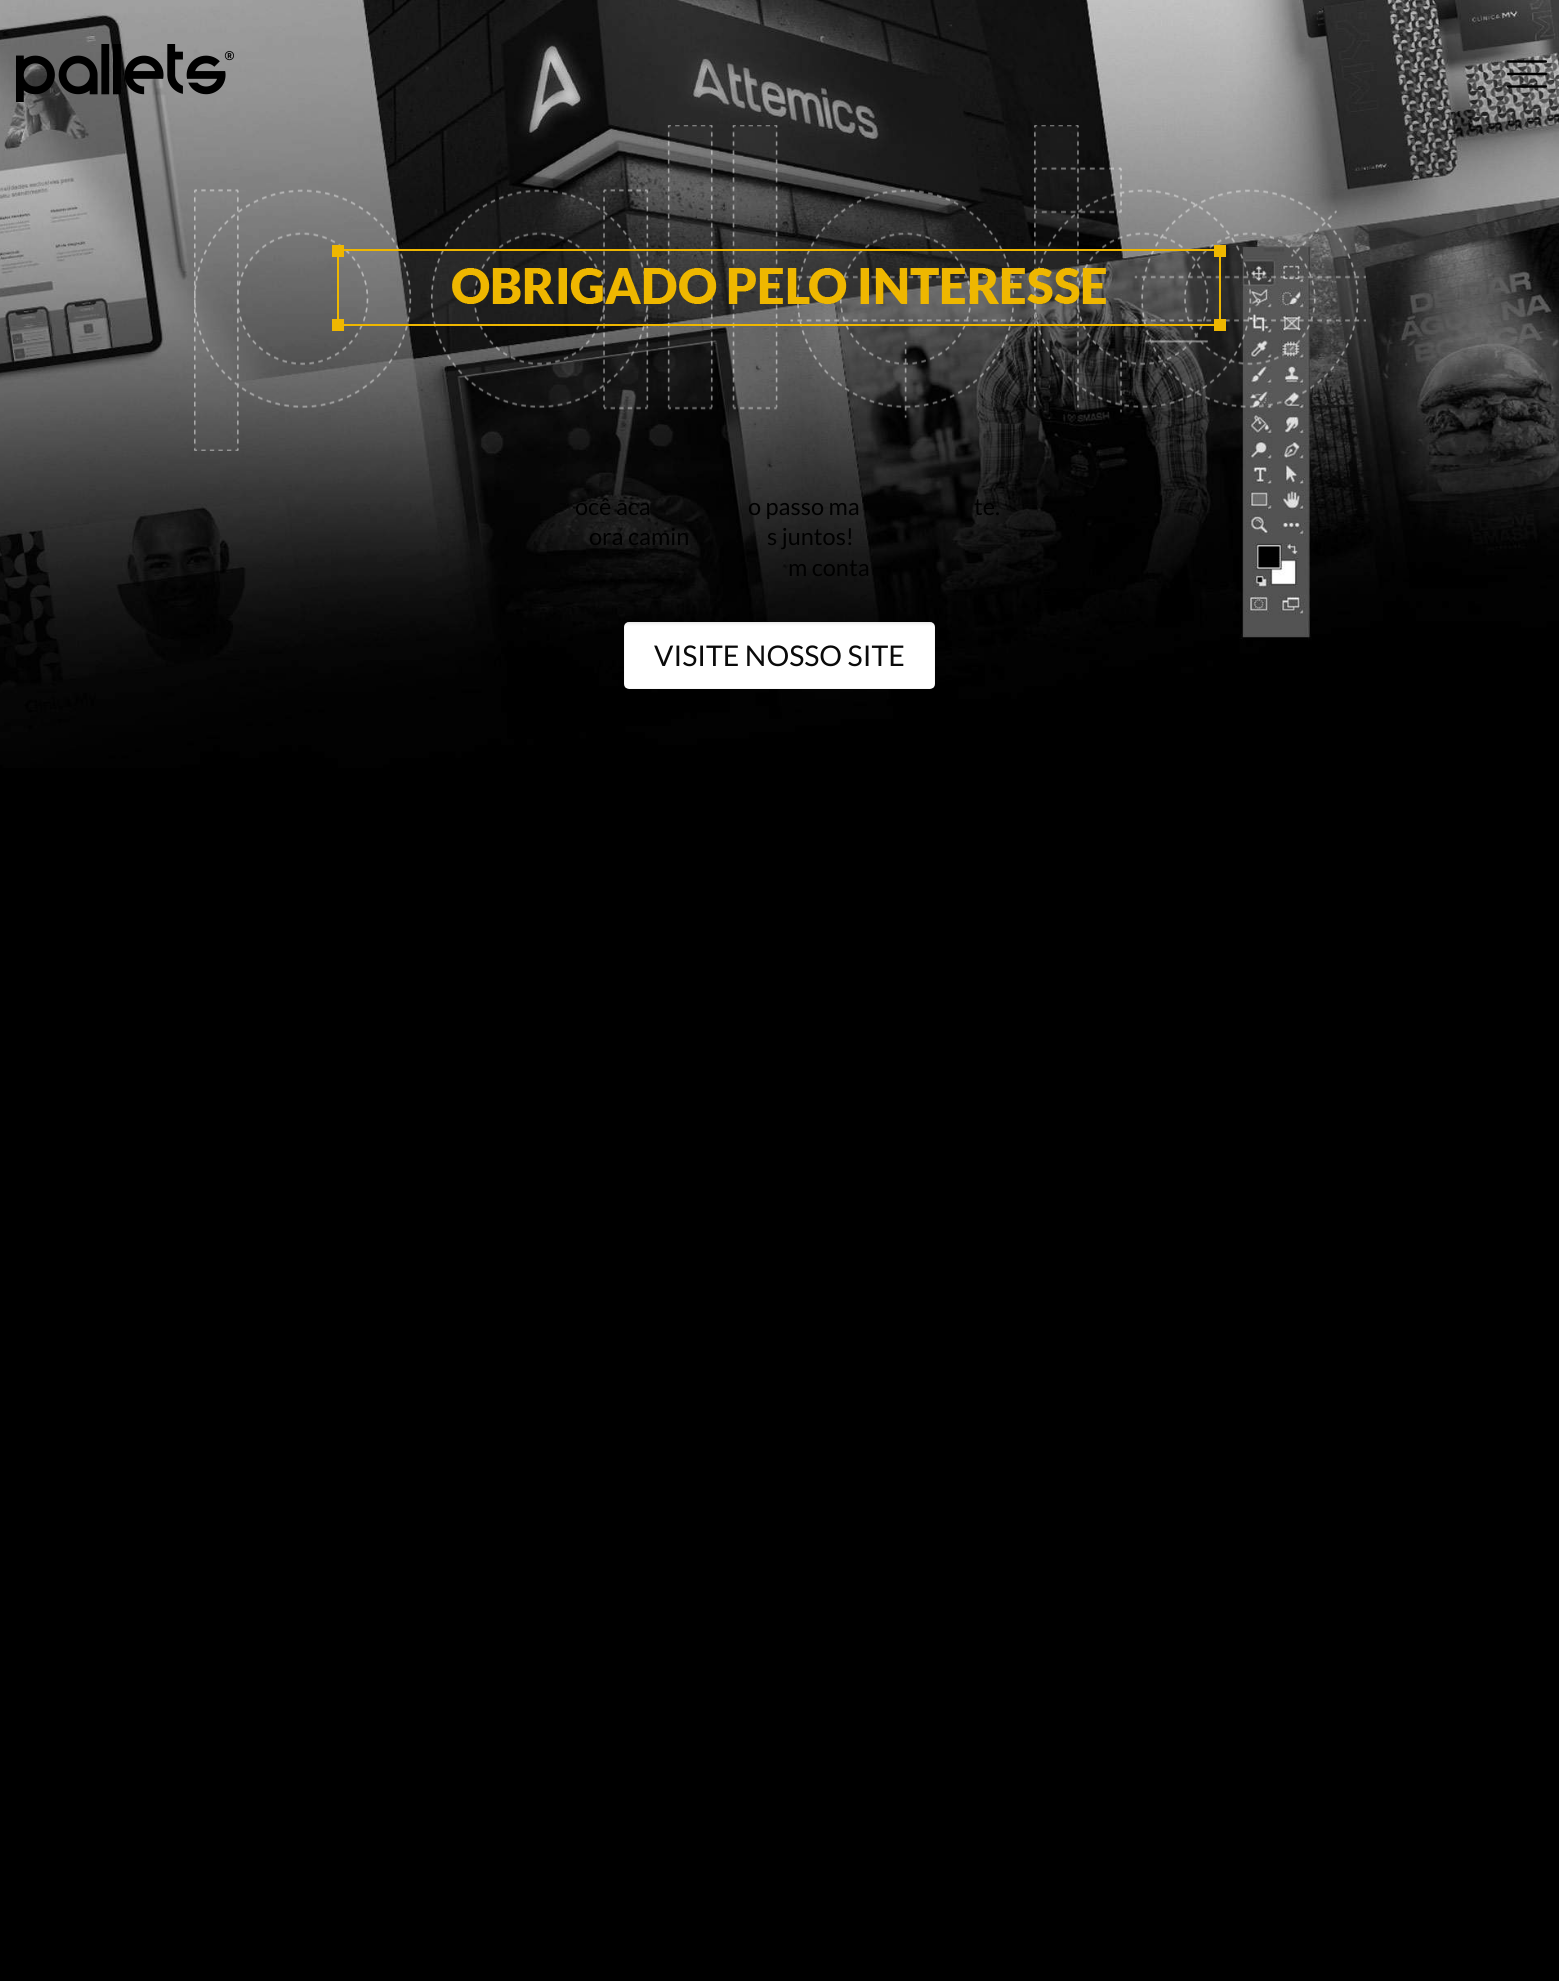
import math
import cairo



def draw_image(context, path, x, y, w, h):
    context.save()
    context.set_source_surface(cairo.ImageSurface.create_from_png(path), x, y)
    context.rectangle(x, y, w, h)
    context.fill()
    context.restore()


def draw(context):
    context.set_source_rgb(0, 0, 0)
    context.paint()
    draw_image(context, "images/3.png", 0, 0, 1559, 768)
    draw_image(context, "images/1.png", 16, 44, 218, 58)
    draw_image(context, "images/2.png", 1507, 60, 40, 28)
    draw_image(context, "images/4.png", 194, 125, 1172, 326)
    draw_image(context, "images/5.png", 332, 245, 894, 86)
    draw_image(context, "images/6.png", 624, 622, 311, 67)
    context.rectangle(624.5, 622.5, 310, 66)
    context.set_source_rgba(0, 0, 0, 0.03)
    context.set_line_width(1)
    context.stroke()
    context.select_font_face("Lato")
    context.set_font_size(23.5)
    context.set_source_rgb(0, 0, 0)
    context.move_to(575, 515)
    context.show_text("ocê aca")
    context.move_to(748, 515)
    context.show_text("o passo ma")
    context.move_to(974, 515)
    context.show_text("te.")
    context.move_to(589, 545)
    context.show_text("ora camin")
    context.move_to(767, 545)
    context.show_text("s juntos!")
    context.move_to(788, 576)
    context.show_text("m conta")
    context.set_font_size(28.5)
    context.set_source_rgb(10 / 255, 10 / 255, 10 / 255)
    context.move_to(654, 666)
    context.show_text("VISITE NOSSO SITE")


surface = cairo.ImageSurface(cairo.Format.RGB24, 1559, 1981)
context = cairo.Context(surface)
options = cairo.FontOptions()
options.set_hint_metrics(cairo.HintMetrics.OFF)
options.set_hint_style(cairo.HintStyle.NONE)
context.set_font_options(options)
context.set_miter_limit(4)
draw(context)
surface.write_to_png("out.png")
